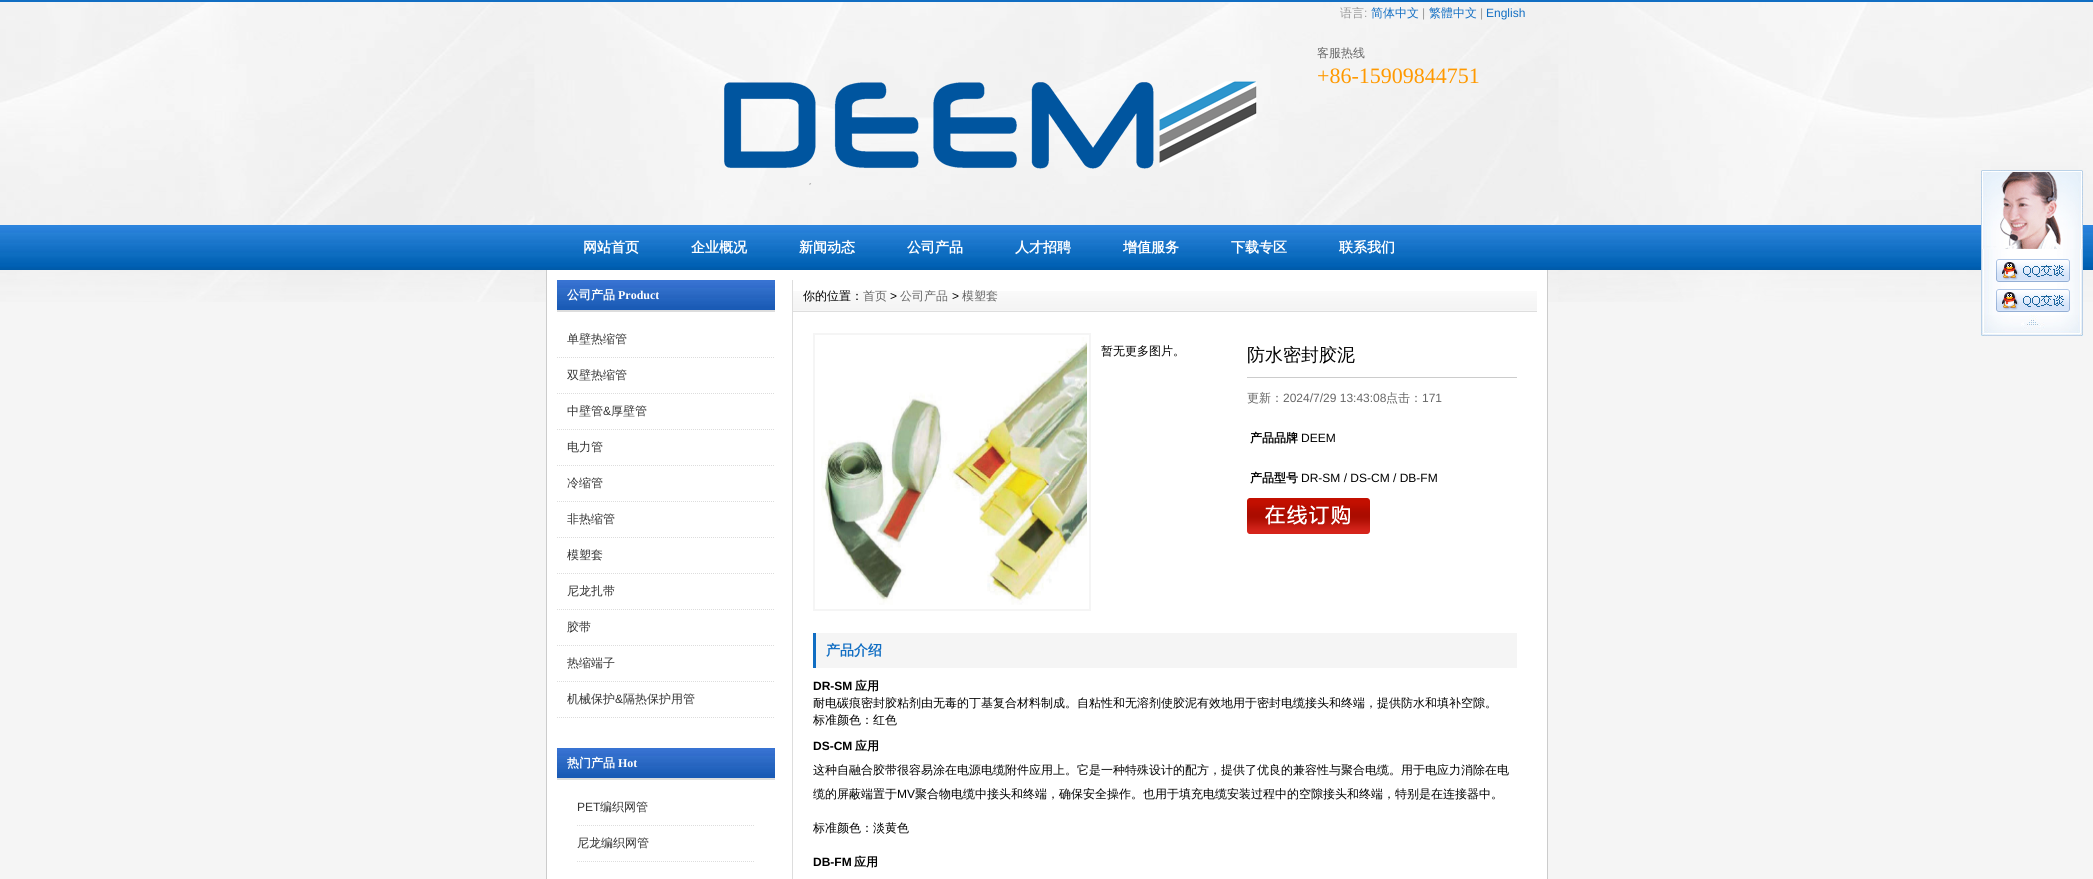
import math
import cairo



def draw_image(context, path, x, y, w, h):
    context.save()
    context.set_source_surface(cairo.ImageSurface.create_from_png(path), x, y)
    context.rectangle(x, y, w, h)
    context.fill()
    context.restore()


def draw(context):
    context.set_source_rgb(245 / 255, 245 / 255, 245 / 255)
    context.paint()
    draw_image(context, "images/1.png", 0, 2, 2093, 300)
    context.set_source_rgb(17 / 255, 110 / 255, 195 / 255)
    context.rectangle(0, 0, 2093, 2)
    context.fill()
    draw_image(context, "images/2.png", 724, 81, 533, 104)
    draw_image(context, "images/3.png", 0, 225, 2093, 45)
    context.set_source_rgb(1, 1, 1)
    context.rectangle(547, 270, 1000, 609)
    context.fill()
    context.set_source_rgb(204 / 255, 204 / 255, 204 / 255)
    context.rectangle(1547, 270, 1, 609)
    context.fill()
    context.rectangle(546, 270, 1, 609)
    context.fill()
    draw_image(context, "images/4.png", 557, 280, 218, 30)
    context.set_source_rgb(221 / 255, 221 / 255, 221 / 255)
    context.rectangle(557, 310, 218, 2)
    context.fill()
    context.new_path()
    context.move_to(557, 357.5)
    context.line_to(775, 357.5)
    context.set_line_width(1)
    context.set_dash([1, 1])
    context.stroke()
    context.new_path()
    context.move_to(557, 393.5)
    context.line_to(775, 393.5)
    context.stroke()
    context.new_path()
    context.move_to(557, 429.5)
    context.line_to(775, 429.5)
    context.stroke()
    context.new_path()
    context.move_to(557, 465.5)
    context.line_to(775, 465.5)
    context.stroke()
    context.new_path()
    context.move_to(557, 501.5)
    context.line_to(775, 501.5)
    context.stroke()
    context.new_path()
    context.move_to(557, 537.5)
    context.line_to(775, 537.5)
    context.stroke()
    context.new_path()
    context.move_to(557, 573.5)
    context.line_to(775, 573.5)
    context.stroke()
    context.new_path()
    context.move_to(557, 609.5)
    context.line_to(775, 609.5)
    context.stroke()
    context.new_path()
    context.move_to(557, 645.5)
    context.line_to(775, 645.5)
    context.stroke()
    context.new_path()
    context.move_to(557, 681.5)
    context.line_to(775, 681.5)
    context.stroke()
    context.new_path()
    context.move_to(557, 717.5)
    context.line_to(775, 717.5)
    context.stroke()
    draw_image(context, "images/4.png", 557, 748, 218, 30)
    context.rectangle(557, 778, 218, 2)
    context.fill()
    context.new_path()
    context.move_to(577, 825.5)
    context.line_to(755, 825.5)
    context.stroke()
    context.new_path()
    context.move_to(577, 861.5)
    context.line_to(755, 861.5)
    context.stroke()
    context.rectangle(792, 280, 1, 599)
    context.fill()
    draw_image(context, "images/5.png", 793, 291, 744, 21)
    context.rectangle(814, 334, 276, 276)
    context.set_source_rgb(245 / 255, 245 / 255, 245 / 255)
    context.set_line_width(2)
    context.set_dash([])
    context.stroke()
    draw_image(context, "images/6.png", 821, 337, 266, 268)
    context.set_source_rgb(204 / 255, 204 / 255, 204 / 255)
    context.rectangle(1247, 377, 270, 1)
    context.fill()
    draw_image(context, "images/7.png", 1247, 498, 123, 36)
    context.set_source_rgb(245 / 255, 245 / 255, 245 / 255)
    context.rectangle(816, 633, 701, 35)
    context.fill()
    context.set_source_rgb(17 / 255, 110 / 255, 195 / 255)
    context.rectangle(813, 633, 3, 35)
    context.fill()
    draw_image(context, "images/8.png", 1981, 170, 102, 79)
    draw_image(context, "images/9.png", 1981, 249, 102, 66)
    draw_image(context, "images/10.png", 1996, 259, 74, 23)
    draw_image(context, "images/10.png", 1996, 289, 74, 23)
    draw_image(context, "images/11.png", 1981, 315, 102, 21)
    context.select_font_face("WenQuanYi Zen Hei Medium")
    context.set_font_size(12)
    context.set_source_rgb(153 / 255, 153 / 255, 153 / 255)
    context.move_to(1340, 17)
    context.show_text("语言")
    context.select_font_face("Liberation Sans")
    context.move_to(1364, 17)
    context.show_text(":")
    context.select_font_face("WenQuanYi Zen Hei Medium")
    context.set_source_rgb(17 / 255, 110 / 255, 195 / 255)
    context.move_to(1371, 17)
    context.show_text("简体中文")
    context.select_font_face("Liberation Sans")
    context.set_source_rgb(153 / 255, 153 / 255, 153 / 255)
    context.move_to(1422, 17)
    context.show_text("|")
    context.select_font_face("WenQuanYi Zen Hei Medium")
    context.set_source_rgb(17 / 255, 110 / 255, 195 / 255)
    context.move_to(1429, 17)
    context.show_text("繁體中文")
    context.select_font_face("Liberation Sans")
    context.set_source_rgb(153 / 255, 153 / 255, 153 / 255)
    context.move_to(1480, 17)
    context.show_text("|")
    context.set_source_rgb(17 / 255, 110 / 255, 195 / 255)
    context.move_to(1486, 17)
    context.show_text("English")
    context.select_font_face("WenQuanYi Zen Hei Medium")
    context.set_source_rgb(102 / 255, 102 / 255, 102 / 255)
    context.move_to(1317, 57)
    context.show_text("客服热线")
    context.select_font_face("Liberation Serif")
    context.set_font_size(22)
    context.set_source_rgb(1, 153 / 255, 0)
    context.move_to(1317, 83)
    context.show_text("+86-15909844751")
    context.select_font_face("WenQuanYi Zen Hei", cairo.FontSlant.NORMAL, cairo.FontWeight.BOLD)
    context.set_font_size(14)
    context.set_source_rgb(1, 1, 1)
    context.move_to(583, 252)
    context.show_text("网站首页")
    context.move_to(691, 252)
    context.show_text("企业概况")
    context.move_to(799, 252)
    context.show_text("新闻动态")
    context.move_to(907, 252)
    context.show_text("公司产品")
    context.move_to(1015, 252)
    context.show_text("人才招聘")
    context.move_to(1123, 252)
    context.show_text("增值服务")
    context.move_to(1231, 252)
    context.show_text("下载专区")
    context.move_to(1339, 252)
    context.show_text("联系我们")
    context.set_font_size(12)
    context.move_to(567, 299)
    context.show_text("公司产品")
    context.select_font_face("Liberation Serif", cairo.FontSlant.NORMAL, cairo.FontWeight.BOLD)
    context.move_to(618, 299)
    context.show_text("Product")
    context.select_font_face("WenQuanYi Zen Hei Medium")
    context.set_source_rgb(51 / 255, 51 / 255, 51 / 255)
    context.move_to(567, 343)
    context.show_text("单壁热缩管")
    context.move_to(567, 379)
    context.show_text("双壁热缩管")
    context.move_to(567, 415)
    context.show_text("中壁管")
    context.select_font_face("Liberation Sans")
    context.move_to(603, 415)
    context.show_text("&")
    context.select_font_face("WenQuanYi Zen Hei Medium")
    context.move_to(611, 415)
    context.show_text("厚壁管")
    context.move_to(567, 451)
    context.show_text("电力管")
    context.move_to(567, 487)
    context.show_text("冷缩管")
    context.move_to(567, 523)
    context.show_text("非热缩管")
    context.move_to(567, 559)
    context.show_text("模塑套")
    context.move_to(567, 595)
    context.show_text("尼龙扎带")
    context.move_to(567, 631)
    context.show_text("胶带")
    context.move_to(567, 667)
    context.show_text("热缩端子")
    context.move_to(567, 703)
    context.show_text("机械保护")
    context.select_font_face("Liberation Sans")
    context.move_to(615, 703)
    context.show_text("&")
    context.select_font_face("WenQuanYi Zen Hei Medium")
    context.move_to(623, 703)
    context.show_text("隔热保护用管")
    context.select_font_face("WenQuanYi Zen Hei", cairo.FontSlant.NORMAL, cairo.FontWeight.BOLD)
    context.set_source_rgb(1, 1, 1)
    context.move_to(567, 767)
    context.show_text("热门产品")
    context.select_font_face("Liberation Serif", cairo.FontSlant.NORMAL, cairo.FontWeight.BOLD)
    context.move_to(618, 767)
    context.show_text("Hot")
    context.select_font_face("Liberation Sans")
    context.set_source_rgb(51 / 255, 51 / 255, 51 / 255)
    context.move_to(577, 811)
    context.show_text("PET")
    context.select_font_face("WenQuanYi Zen Hei Medium")
    context.move_to(600, 811)
    context.show_text("编织网管")
    context.move_to(577, 847)
    context.show_text("尼龙编织网管")
    context.set_source_rgb(0, 0, 0)
    context.move_to(803, 300)
    context.show_text("你的位置：")
    context.set_source_rgb(102 / 255, 102 / 255, 102 / 255)
    context.move_to(863, 300)
    context.show_text("首页")
    context.select_font_face("Liberation Sans")
    context.set_source_rgb(0, 0, 0)
    context.move_to(890, 300)
    context.show_text(">")
    context.select_font_face("WenQuanYi Zen Hei Medium")
    context.set_source_rgb(102 / 255, 102 / 255, 102 / 255)
    context.move_to(900, 300)
    context.show_text("公司产品")
    context.select_font_face("Liberation Sans")
    context.set_source_rgb(0, 0, 0)
    context.move_to(952, 300)
    context.show_text(">")
    context.select_font_face("WenQuanYi Zen Hei Medium")
    context.set_source_rgb(102 / 255, 102 / 255, 102 / 255)
    context.move_to(962, 300)
    context.show_text("模塑套")
    context.set_source_rgb(0, 0, 0)
    context.move_to(1101, 355)
    context.show_text("暂无更多图片。")
    context.set_font_size(18)
    context.move_to(1247, 361)
    context.show_text("防水密封胶泥")
    context.set_font_size(12)
    context.set_source_rgb(102 / 255, 102 / 255, 102 / 255)
    context.move_to(1247, 402)
    context.show_text("更新：")
    context.select_font_face("Liberation Sans")
    context.move_to(1283, 402)
    context.show_text("2024/7/29 13:43:08")
    context.select_font_face("WenQuanYi Zen Hei Medium")
    context.move_to(1386, 402)
    context.show_text("点击：")
    context.select_font_face("Liberation Sans")
    context.move_to(1422, 402)
    context.show_text("171")
    context.select_font_face("WenQuanYi Zen Hei", cairo.FontSlant.NORMAL, cairo.FontWeight.BOLD)
    context.set_source_rgb(0, 0, 0)
    context.move_to(1250, 442)
    context.show_text("产品品牌")
    context.select_font_face("Liberation Sans")
    context.move_to(1301, 442)
    context.show_text("DEEM")
    context.select_font_face("WenQuanYi Zen Hei", cairo.FontSlant.NORMAL, cairo.FontWeight.BOLD)
    context.move_to(1250, 482)
    context.show_text("产品型号")
    context.select_font_face("Liberation Sans")
    context.move_to(1301, 482)
    context.show_text("DR-SM / DS-CM / DB-FM")
    context.select_font_face("WenQuanYi Zen Hei", cairo.FontSlant.NORMAL, cairo.FontWeight.BOLD)
    context.set_font_size(14)
    context.set_source_rgb(17 / 255, 110 / 255, 195 / 255)
    context.move_to(826, 655)
    context.show_text("产品介绍")
    context.select_font_face("Liberation Sans", cairo.FontSlant.NORMAL, cairo.FontWeight.BOLD)
    context.set_font_size(12)
    context.set_source_rgb(0, 0, 0)
    context.move_to(813, 690)
    context.show_text("DR-SM")
    context.select_font_face("WenQuanYi Zen Hei", cairo.FontSlant.NORMAL, cairo.FontWeight.BOLD)
    context.move_to(855, 690)
    context.show_text("应用")
    context.select_font_face("WenQuanYi Zen Hei Medium")
    context.move_to(813, 707)
    context.show_text("耐电碳痕密封胶粘剂由无毒的丁基复合材料制成。自粘性和无溶剂使胶泥有效地用于密封电缆接头和终端，提供防水和填补空隙。")
    context.move_to(813, 724)
    context.show_text("标准颜色：红色")
    context.select_font_face("Liberation Sans", cairo.FontSlant.NORMAL, cairo.FontWeight.BOLD)
    context.move_to(813, 750)
    context.show_text("DS-CM")
    context.select_font_face("WenQuanYi Zen Hei", cairo.FontSlant.NORMAL, cairo.FontWeight.BOLD)
    context.move_to(855, 750)
    context.show_text("应用")
    context.select_font_face("WenQuanYi Zen Hei Medium")
    context.move_to(813, 774)
    context.show_text("这种自融合胶带很容易涂在电源电缆附件应用上。它是一种特殊设计的配方，提供了优良的兼容性与聚合电缆。用于电应力消除在电")
    context.move_to(813, 798)
    context.show_text("缆的屏蔽端置于")
    context.select_font_face("Liberation Sans")
    context.move_to(897, 798)
    context.show_text("MV")
    context.select_font_face("WenQuanYi Zen Hei Medium")
    context.move_to(915, 798)
    context.show_text("聚合物电缆中接头和终端，确保安全操作。也用于填充电缆安装过程中的空隙接头和终端，特别是在连接器中。")
    context.move_to(813, 832)
    context.show_text("标准颜色：淡黄色")
    context.select_font_face("Liberation Sans", cairo.FontSlant.NORMAL, cairo.FontWeight.BOLD)
    context.move_to(813, 866)
    context.show_text("DB-FM")
    context.select_font_face("WenQuanYi Zen Hei", cairo.FontSlant.NORMAL, cairo.FontWeight.BOLD)
    context.move_to(854, 866)
    context.show_text("应用")


surface = cairo.ImageSurface(cairo.Format.RGB24, 2093, 879)
context = cairo.Context(surface)
options = cairo.FontOptions()
options.set_hint_metrics(cairo.HintMetrics.OFF)
options.set_hint_style(cairo.HintStyle.NONE)
context.set_font_options(options)
context.set_miter_limit(4)
draw(context)
surface.write_to_png("out.png")
